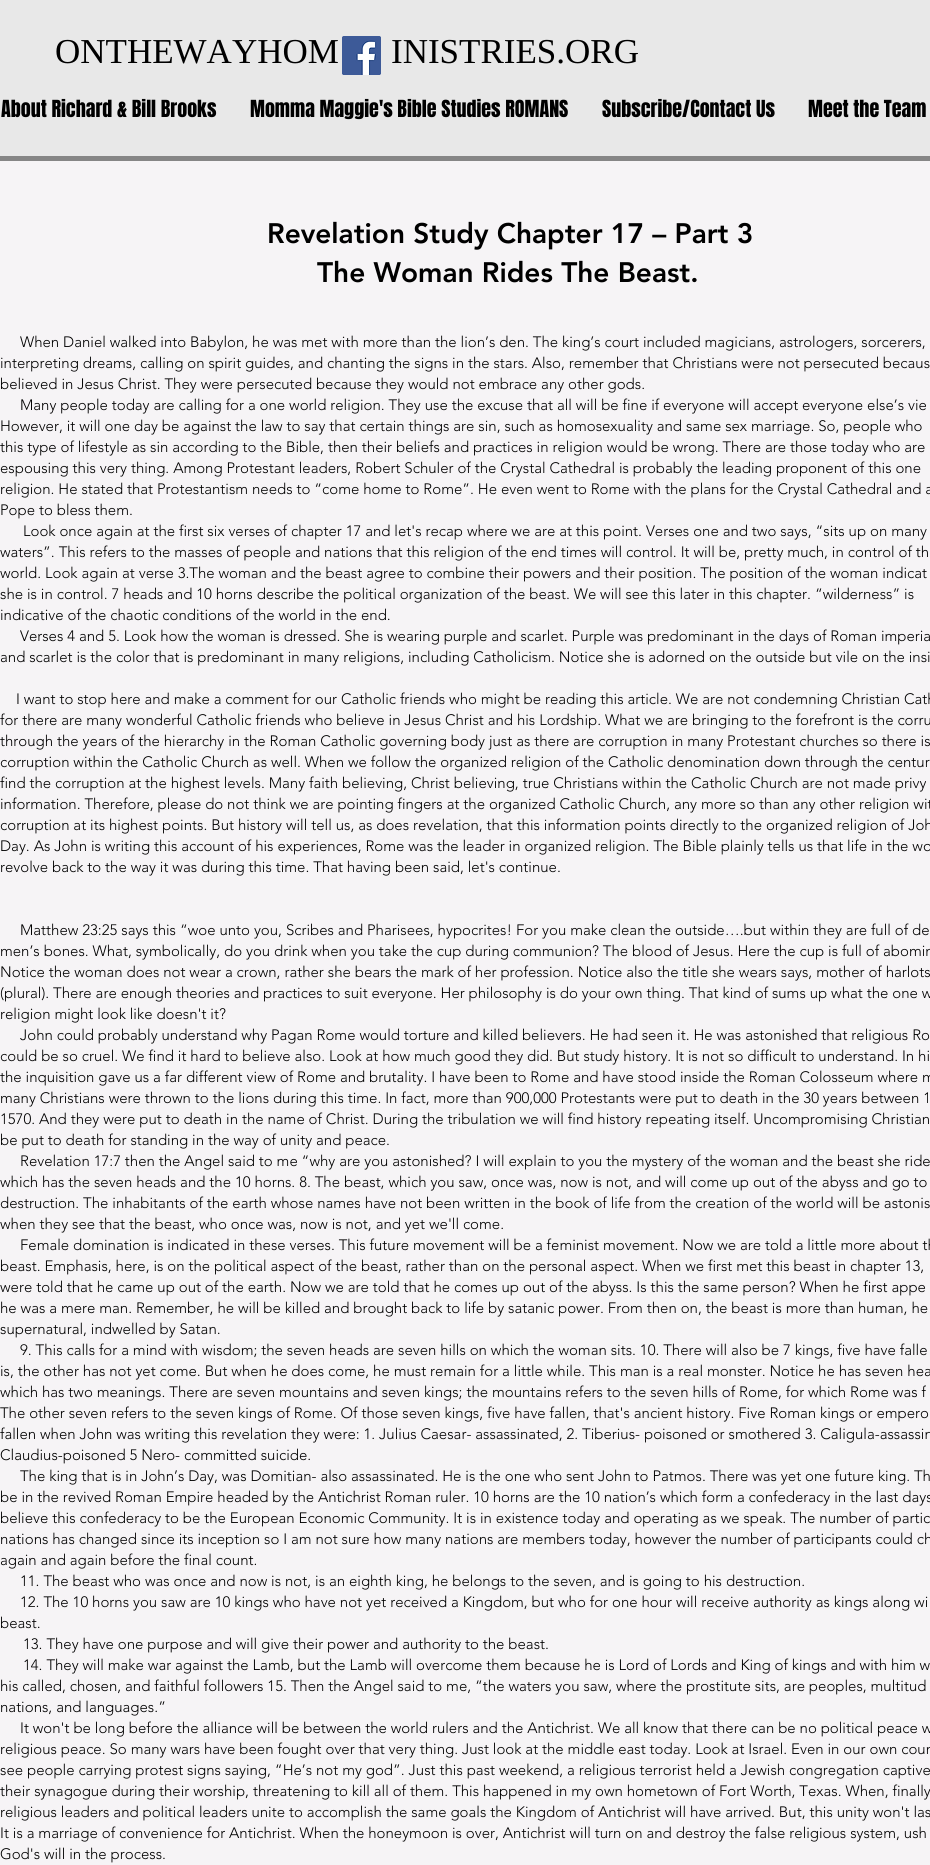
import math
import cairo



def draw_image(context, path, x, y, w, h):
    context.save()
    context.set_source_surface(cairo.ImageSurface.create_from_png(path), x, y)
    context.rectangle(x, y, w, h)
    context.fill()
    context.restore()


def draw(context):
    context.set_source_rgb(246 / 255, 244 / 255, 246 / 255)
    context.paint()
    context.set_source_rgb(232 / 255, 232 / 255, 232 / 255)
    context.rectangle(0, 0, 930, 156)
    context.fill()
    context.set_source_rgb(134 / 255, 134 / 255, 134 / 255)
    context.rectangle(0, 156, 930, 5)
    context.fill()
    draw_image(context, "images/1.png", 342, 36, 39, 39)
    context.select_font_face("Liberation Serif")
    context.set_font_size(35)
    context.set_source_rgb(0, 0, 0)
    context.move_to(55, 63)
    context.show_text("ONTHEWAYHOM")
    context.move_to(391, 63)
    context.show_text("INISTRIES.ORG")
    context.select_font_face("Anton")
    context.set_font_size(20)
    context.move_to(1, 117)
    context.show_text("About Richard & Bill Brooks")
    context.move_to(250, 117)
    context.show_text("Momma Maggie's Bible Studies ROMANS")
    context.move_to(602, 117)
    context.show_text("Subscribe/Contact Us")
    context.move_to(808, 117)
    context.show_text("Meet the Team")
    context.select_font_face("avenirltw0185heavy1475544 Black")
    context.set_font_size(28)
    context.move_to(267, 243)
    context.show_text("Revelation Study Chapter 17 – Part 3")
    context.move_to(317, 282)
    context.show_text("The Woman Rides The Beast.")
    context.select_font_face("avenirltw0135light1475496 Light")
    context.set_font_size(15)
    context.move_to(20, 347)
    context.show_text("When Daniel walked into Babylon, he was met with more than the lion’s den. The king’s court included magicians, astrologers, sorcerers,")
    context.move_to(0, 368)
    context.show_text("interpreting dreams, calling on spirit guides, and chanting the signs in the stars. Also, remember that Christians were not persecuted becaus")
    context.move_to(0, 389)
    context.show_text("believed in Jesus Christ. They were persecuted because they would not embrace any other gods.")
    context.move_to(20, 410)
    context.show_text("Many people today are calling for a one world religion. They use the excuse that all will be fine if everyone will accept everyone else’s vie")
    context.move_to(0, 431)
    context.show_text("However, it will one day be against the law to say that certain things are sin, such as homosexuality and same sex marriage. So, people who")
    context.move_to(0, 452)
    context.show_text("this type of lifestyle as sin according to the Bible, then their beliefs and practices in religion would be wrong. There are those today who are")
    context.move_to(0, 473)
    context.show_text("espousing this very thing. Among Protestant leaders, Robert Schuler of the Crystal Cathedral is probably the leading proponent of this one")
    context.move_to(0, 494)
    context.show_text("religion. He stated that Protestantism needs to “come home to Rome”. He even went to Rome with the plans for the Crystal Cathedral and a")
    context.move_to(0, 515)
    context.show_text("Pope to bless them.")
    context.move_to(23, 536)
    context.show_text("Look once again at the first six verses of chapter 17 and let's recap where we are at this point. Verses one and two says, “sits up on many")
    context.move_to(0, 557)
    context.show_text("waters”. This refers to the masses of people and nations that this religion of the end times will control. It will be, pretty much, in control of th")
    context.move_to(0, 578)
    context.show_text("world. Look again at verse 3.The woman and the beast agree to combine their powers and their position. The position of the woman indicat")
    context.move_to(0, 599)
    context.show_text("she is in control. 7 heads and 10 horns describe the political organization of the beast. We will see this later in this chapter. “wilderness” is")
    context.move_to(0, 620)
    context.show_text("indicative of the chaotic conditions of the world in the end.")
    context.move_to(20, 641)
    context.show_text("Verses 4 and 5. Look how the woman is dressed. She is wearing purple and scarlet. Purple was predominant in the days of Roman imperia")
    context.move_to(0, 662)
    context.show_text("and scarlet is the color that is predominant in many religions, including Catholicism. Notice she is adorned on the outside but vile on the insi")
    context.move_to(16, 704)
    context.show_text("I want to stop here and make a comment for our Catholic friends who might be reading this article. We are not condemning Christian Cath")
    context.move_to(0, 725)
    context.show_text("for there are many wonderful Catholic friends who believe in Jesus Christ and his Lordship. What we are bringing to the forefront is the corru")
    context.move_to(0, 746)
    context.show_text("through the years of the hierarchy in the Roman Catholic governing body just as there are corruption in many Protestant churches so there is")
    context.move_to(0, 767)
    context.show_text("corruption within the Catholic Church as well. When we follow the organized religion of the Catholic denomination down through the centur")
    context.move_to(0, 788)
    context.show_text("find the corruption at the highest levels. Many faith believing, Christ believing, true Christians within the Catholic Church are not made privy")
    context.move_to(0, 809)
    context.show_text("information. Therefore, please do not think we are pointing fingers at the organized Catholic Church, any more so than any other religion wit")
    context.move_to(0, 830)
    context.show_text("corruption at its highest points. But history will tell us, as does revelation, that this information points directly to the organized religion of Joh")
    context.move_to(0, 851)
    context.show_text("Day. As John is writing this account of his experiences, Rome was the leader in organized religion. The Bible plainly tells us that life in the wo")
    context.move_to(0, 872)
    context.show_text("revolve back to the way it was during this time. That having been said, let's continue.")
    context.move_to(20, 935)
    context.show_text("Matthew 23:25 says this “woe unto you, Scribes and Pharisees, hypocrites! For you make clean the outside….but within they are full of de")
    context.move_to(0, 956)
    context.show_text("men’s bones. What, symbolically, do you drink when you take the cup during communion? The blood of Jesus. Here the cup is full of abomin")
    context.move_to(0, 977)
    context.show_text("Notice the woman does not wear a crown, rather she bears the mark of her profession. Notice also the title she wears says, mother of harlots")
    context.move_to(0, 998)
    context.show_text("(plural). There are enough theories and practices to suit everyone. Her philosophy is do your own thing. That kind of sums up what the one w")
    context.move_to(0, 1019)
    context.show_text("religion might look like doesn't it?")
    context.move_to(20, 1040)
    context.show_text("John could probably understand why Pagan Rome would torture and killed believers. He had seen it. He was astonished that religious Ro")
    context.move_to(0, 1061)
    context.show_text("could be so cruel. We find it hard to believe also. Look at how much good they did. But study history. It is not so difficult to understand. In hi")
    context.move_to(0, 1082)
    context.show_text("the inquisition gave us a far different view of Rome and brutality. I have been to Rome and have stood inside the Roman Colosseum where m")
    context.move_to(0, 1103)
    context.show_text("many Christians were thrown to the lions during this time. In fact, more than 900,000 Protestants were put to death in the 30 years between 1")
    context.move_to(0, 1124)
    context.show_text("1570. And they were put to death in the name of Christ. During the tribulation we will find history repeating itself. Uncompromising Christian")
    context.move_to(0, 1145)
    context.show_text("be put to death for standing in the way of unity and peace.")
    context.move_to(20, 1166)
    context.show_text("Revelation 17:7 then the Angel said to me “why are you astonished? I will explain to you the mystery of the woman and the beast she ride")
    context.move_to(0, 1187)
    context.show_text("which has the seven heads and the 10 horns. 8. The beast, which you saw, once was, now is not, and will come up out of the abyss and go to")
    context.move_to(0, 1208)
    context.show_text("destruction. The inhabitants of the earth whose names have not been written in the book of life from the creation of the world will be astonis")
    context.move_to(0, 1229)
    context.show_text("when they see that the beast, who once was, now is not, and yet we'll come.")
    context.move_to(20, 1250)
    context.show_text("Female domination is indicated in these verses. This future movement will be a feminist movement. Now we are told a little more about th")
    context.move_to(0, 1271)
    context.show_text("beast. Emphasis, here, is on the political aspect of the beast, rather than on the personal aspect. When we first met this beast in chapter 13,")
    context.move_to(0, 1292)
    context.show_text("were told that he came up out of the earth. Now we are told that he comes up out of the abyss. Is this the same person? When he first appe")
    context.move_to(0, 1313)
    context.show_text("he was a mere man. Remember, he will be killed and brought back to life by satanic power. From then on, the beast is more than human, he")
    context.move_to(0, 1334)
    context.show_text("supernatural, indwelled by Satan.")
    context.move_to(20, 1355)
    context.show_text("9. This calls for a mind with wisdom; the seven heads are seven hills on which the woman sits. 10. There will also be 7 kings, five have falle")
    context.move_to(0, 1376)
    context.show_text("is, the other has not yet come. But when he does come, he must remain for a little while. This man is a real monster. Notice he has seven hea")
    context.move_to(0, 1397)
    context.show_text("which has two meanings. There are seven mountains and seven kings; the mountains refers to the seven hills of Rome, for which Rome was f")
    context.move_to(0, 1418)
    context.show_text("The other seven refers to the seven kings of Rome. Of those seven kings, five have fallen, that's ancient history. Five Roman kings or empero")
    context.move_to(0, 1439)
    context.show_text("fallen when John was writing this revelation they were: 1. Julius Caesar- assassinated, 2. Tiberius- poisoned or smothered 3. Caligula-assassin")
    context.move_to(0, 1460)
    context.show_text("Claudius-poisoned 5 Nero- committed suicide.")
    context.move_to(20, 1481)
    context.show_text("The king that is in John’s Day, was Domitian- also assassinated. He is the one who sent John to Patmos. There was yet one future king. Th")
    context.move_to(0, 1502)
    context.show_text("be in the revived Roman Empire headed by the Antichrist Roman ruler. 10 horns are the 10 nation’s which form a confederacy in the last days")
    context.move_to(0, 1523)
    context.show_text("believe this confederacy to be the European Economic Community. It is in existence today and operating as we speak. The number of partic")
    context.move_to(0, 1544)
    context.show_text("nations has changed since its inception so I am not sure how many nations are members today, however the number of participants could ch")
    context.move_to(0, 1565)
    context.show_text("again and again before the final count.")
    context.move_to(20, 1586)
    context.show_text("11. The beast who was once and now is not, is an eighth king, he belongs to the seven, and is going to his destruction.")
    context.move_to(20, 1607)
    context.show_text("12. The 10 horns you saw are 10 kings who have not yet received a Kingdom, but who for one hour will receive authority as kings along wi")
    context.move_to(0, 1628)
    context.show_text("beast.")
    context.move_to(23, 1649)
    context.show_text("13. They have one purpose and will give their power and authority to the beast.")
    context.move_to(23, 1670)
    context.show_text("14. They will make war against the Lamb, but the Lamb will overcome them because he is Lord of Lords and King of kings and with him w")
    context.move_to(0, 1691)
    context.show_text("his called, chosen, and faithful followers 15. Then the Angel said to me, “the waters you saw, where the prostitute sits, are peoples, multitud")
    context.move_to(0, 1712)
    context.show_text("nations, and languages.”")
    context.move_to(20, 1733)
    context.show_text("It won't be long before the alliance will be between the world rulers and the Antichrist. We all know that there can be no political peace w")
    context.move_to(0, 1754)
    context.show_text("religious peace. So many wars have been fought over that very thing. Just look at the middle east today. Look at Israel. Even in our own coun")
    context.move_to(0, 1775)
    context.show_text("see people carrying protest signs saying, “He’s not my god”. Just this past weekend, a religious terrorist held a Jewish congregation captive")
    context.move_to(0, 1796)
    context.show_text("their synagogue during their worship, threatening to kill all of them. This happened in my own hometown of Fort Worth, Texas. When, finally")
    context.move_to(0, 1817)
    context.show_text("religious leaders and political leaders unite to accomplish the same goals the Kingdom of Antichrist will have arrived. But, this unity won't las")
    context.move_to(0, 1838)
    context.show_text("It is a marriage of convenience for Antichrist. When the honeymoon is over, Antichrist will turn on and destroy the false religious system, ush")
    context.move_to(0, 1859)
    context.show_text("God's will in the process.")


surface = cairo.ImageSurface(cairo.Format.RGB24, 930, 1865)
context = cairo.Context(surface)
options = cairo.FontOptions()
options.set_hint_metrics(cairo.HintMetrics.OFF)
options.set_hint_style(cairo.HintStyle.NONE)
context.set_font_options(options)
context.set_miter_limit(4)
draw(context)
surface.write_to_png("out.png")
